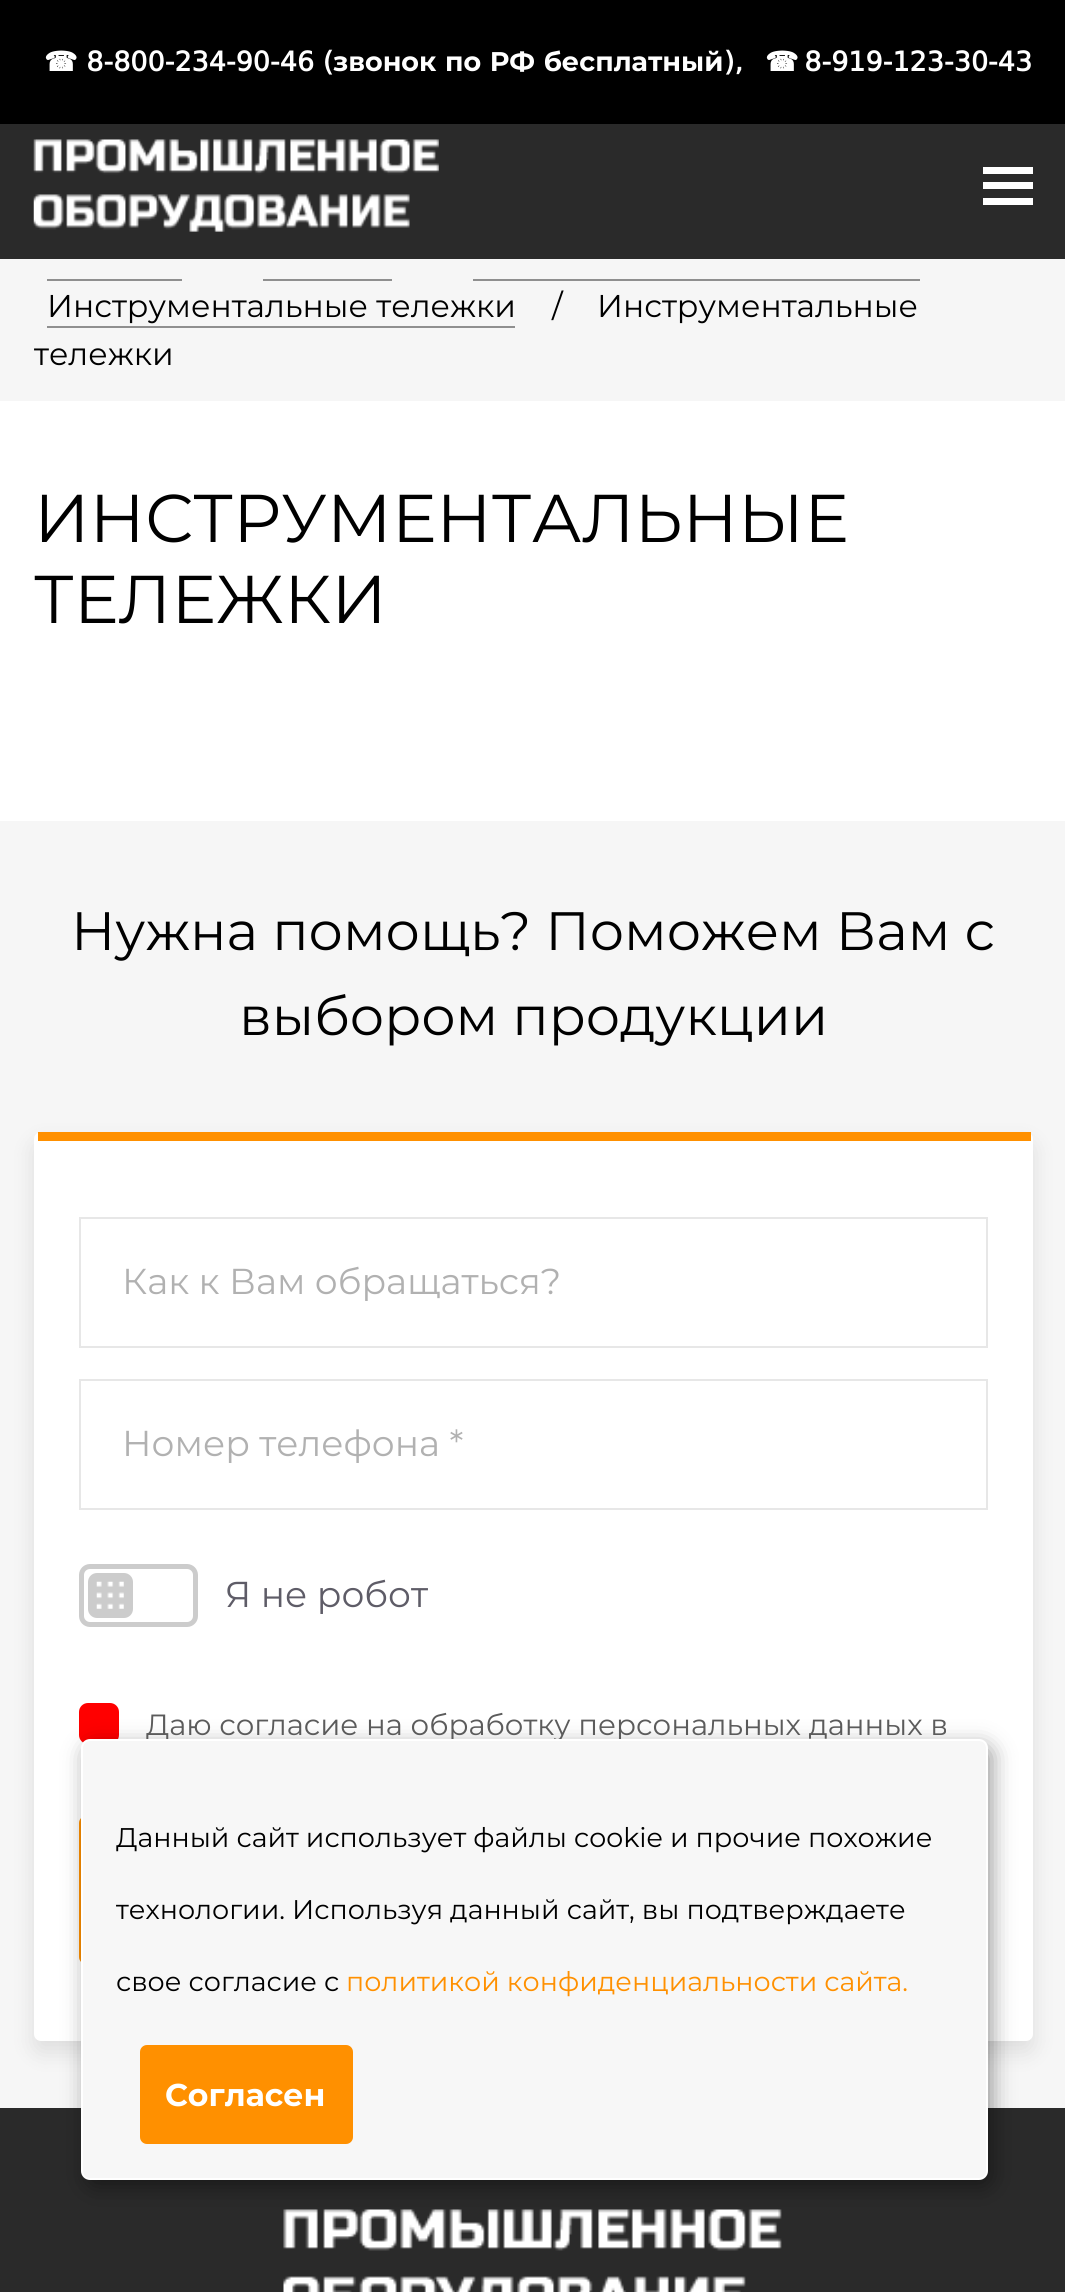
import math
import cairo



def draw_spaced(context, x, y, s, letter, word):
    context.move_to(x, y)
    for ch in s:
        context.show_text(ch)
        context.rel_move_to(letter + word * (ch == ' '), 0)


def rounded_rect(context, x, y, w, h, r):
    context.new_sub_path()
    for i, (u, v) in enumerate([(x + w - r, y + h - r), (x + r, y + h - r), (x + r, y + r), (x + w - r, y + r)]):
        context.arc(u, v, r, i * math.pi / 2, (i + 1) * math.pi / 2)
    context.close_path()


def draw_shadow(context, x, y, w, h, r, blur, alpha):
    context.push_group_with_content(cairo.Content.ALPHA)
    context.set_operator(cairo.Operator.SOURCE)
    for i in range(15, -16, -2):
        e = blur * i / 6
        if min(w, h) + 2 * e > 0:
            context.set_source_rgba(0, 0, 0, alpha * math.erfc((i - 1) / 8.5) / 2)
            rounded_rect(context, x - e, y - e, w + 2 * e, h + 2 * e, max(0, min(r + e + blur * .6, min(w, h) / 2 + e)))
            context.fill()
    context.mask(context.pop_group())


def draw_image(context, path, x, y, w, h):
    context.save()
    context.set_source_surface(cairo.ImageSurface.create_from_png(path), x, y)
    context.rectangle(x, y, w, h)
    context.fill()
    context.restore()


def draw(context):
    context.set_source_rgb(1, 1, 1)
    context.paint()
    context.set_source_rgb(0, 0, 0)
    context.rectangle(0, 0, 1065, 124)
    context.fill()
    context.set_source_rgb(42 / 255, 42 / 255, 42 / 255)
    context.rectangle(0, 124, 1065, 135)
    context.fill()
    draw_image(context, "images/1.png", 33, 139, 406, 93)
    context.set_source_rgb(1, 1, 1)
    context.rectangle(983, 167, 50, 7)
    context.fill()
    context.rectangle(983, 182, 50, 7)
    context.fill()
    context.rectangle(983, 198, 50, 7)
    context.fill()
    context.set_source_rgb(246 / 255, 246 / 255, 246 / 255)
    context.rectangle(0, 259, 1065, 142)
    context.fill()
    context.set_source_rgb(143 / 255, 143 / 255, 143 / 255)
    context.rectangle(47, 279, 135, 2)
    context.fill()
    context.rectangle(263, 279, 129, 2)
    context.fill()
    context.rectangle(473, 279, 447, 2)
    context.fill()
    context.rectangle(47, 326, 468, 2)
    context.fill()
    context.set_source_rgb(246 / 255, 246 / 255, 246 / 255)
    context.rectangle(0, 821, 1065, 1287)
    context.fill()
    context.set_source_rgb(0, 0, 0)
    draw_shadow(context, 34, 1143, 999, 909, 7, 11, 0.1)
    context.set_source_rgb(1, 1, 1)
    rounded_rect(context, 34, 1132, 999, 909, 7)
    context.fill()
    context.set_source_rgb(1, 144 / 255, 0)
    context.rectangle(38, 1132, 993, 9)
    context.fill()
    context.rectangle(80, 1218, 907, 129)
    context.set_source_rgb(231 / 255, 231 / 255, 231 / 255)
    context.stroke()
    context.rectangle(80, 1380, 907, 129)
    context.stroke()
    rounded_rect(context, 81.5, 1566.5, 114, 58, 8.5)
    context.set_source_rgb(204 / 255, 204 / 255, 204 / 255)
    context.set_line_width(5)
    context.stroke()
    rounded_rect(context, 88, 1573, 45, 45, 9)
    context.fill()
    draw_image(context, "images/2.png", 96, 1581, 28, 28)
    context.set_source_rgb(1, 0, 0)
    rounded_rect(context, 79, 1703, 40, 41, 9)
    context.fill()
    rounded_rect(context, 81.5, 1818.5, 904, 143, 4.5)
    context.set_source_rgb(1, 144 / 255, 0)
    context.stroke()
    context.set_source_rgb(42 / 255, 42 / 255, 42 / 255)
    context.rectangle(0, 2108, 1065, 184)
    context.fill()
    draw_image(context, "images/3.png", 283, 2209, 499, 83)
    context.set_source_rgb(0, 0, 0)
    draw_shadow(context, 86, 1746, 906, 441, 9, 11, 0.4)
    context.select_font_face("DejaVu Sans", cairo.FontSlant.NORMAL, cairo.FontWeight.BOLD)
    context.set_font_size(27)
    context.set_source_rgb(1, 1, 1)
    context.move_to(44, 71)
    context.show_text("☎ 8-800-234-90-46 (")
    context.select_font_face("Montserrat", cairo.FontSlant.NORMAL, cairo.FontWeight.BOLD)
    draw_spaced(context, 333, 71, "звонок по РФ бесплатный", 0, 1)
    context.select_font_face("DejaVu Sans", cairo.FontSlant.NORMAL, cairo.FontWeight.BOLD)
    context.move_to(724, 71)
    context.show_text("),")
    draw_spaced(context, 765, 71, "☎ 8-919-123-30-43", 0, -3)
    context.select_font_face("Montserrat")
    context.set_font_size(31.5)
    context.set_source_rgb(0, 0, 0)
    context.move_to(47, 317)
    context.show_text("Инструментальные тележки")
    context.move_to(552, 317)
    context.show_text("/")
    context.move_to(597, 317)
    context.show_text("Инструментальные")
    context.move_to(34, 365)
    context.show_text("тележки")
    context.set_font_size(67.5)
    context.move_to(34, 542)
    context.show_text("ИНСТРУМЕНТАЛЬНЫЕ")
    context.move_to(34, 623)
    context.show_text("ТЕЛЕЖКИ")
    context.set_font_size(54)
    context.move_to(71, 950)
    context.show_text("Нужна помощь? Поможем Вам с")
    context.move_to(239, 1035)
    context.show_text("выбором продукции")
    context.set_font_size(36)
    context.set_source_rgb(177 / 255, 177 / 255, 177 / 255)
    context.move_to(122, 1294)
    context.show_text("Как к Вам обращаться?")
    context.move_to(122, 1456)
    context.show_text("Номер телефона *")
    context.set_source_rgb(94 / 255, 92 / 255, 103 / 255)
    context.move_to(225, 1607)
    context.show_text("Я не робот")
    context.set_font_size(29.25)
    context.set_source_rgb(91 / 255, 91 / 255, 91 / 255)
    context.move_to(146, 1735)
    context.show_text("Даю согласие на обработку персональных данных в")
    context.set_source_rgb(247 / 255, 247 / 255, 247 / 255)
    rounded_rect(context, 82, 1740, 905, 439, 8)
    context.fill_preserve()
    context.set_source_rgb(1, 1, 1)
    context.set_line_width(2)
    context.stroke()
    context.set_font_size(27)
    context.set_source_rgb(0, 0, 0)
    context.move_to(116, 1847)
    context.show_text("Данный сайт использует файлы cookie и прочие похожие")
    context.move_to(116, 1919)
    context.show_text("технологии. Используя данный сайт, вы подтверждаете")
    context.move_to(116, 1991)
    context.show_text("свое согласие с")
    context.set_source_rgb(1, 144 / 255, 0)
    context.move_to(346, 1991)
    context.show_text("политикой конфиденциальности сайта.")
    rounded_rect(context, 142.5, 2047.5, 208, 94, 4.5)
    context.fill_preserve()
    context.set_line_width(5)
    context.stroke()
    context.select_font_face("Montserrat", cairo.FontSlant.NORMAL, cairo.FontWeight.BOLD)
    context.set_font_size(31.5)
    context.set_source_rgb(1, 1, 1)
    context.move_to(165, 2106)
    context.show_text("Согласен")


surface = cairo.ImageSurface(cairo.Format.RGB24, 1065, 2292)
context = cairo.Context(surface)
options = cairo.FontOptions()
options.set_hint_metrics(cairo.HintMetrics.OFF)
options.set_hint_style(cairo.HintStyle.NONE)
context.set_font_options(options)
context.set_miter_limit(4)
draw(context)
surface.write_to_png("out.png")
